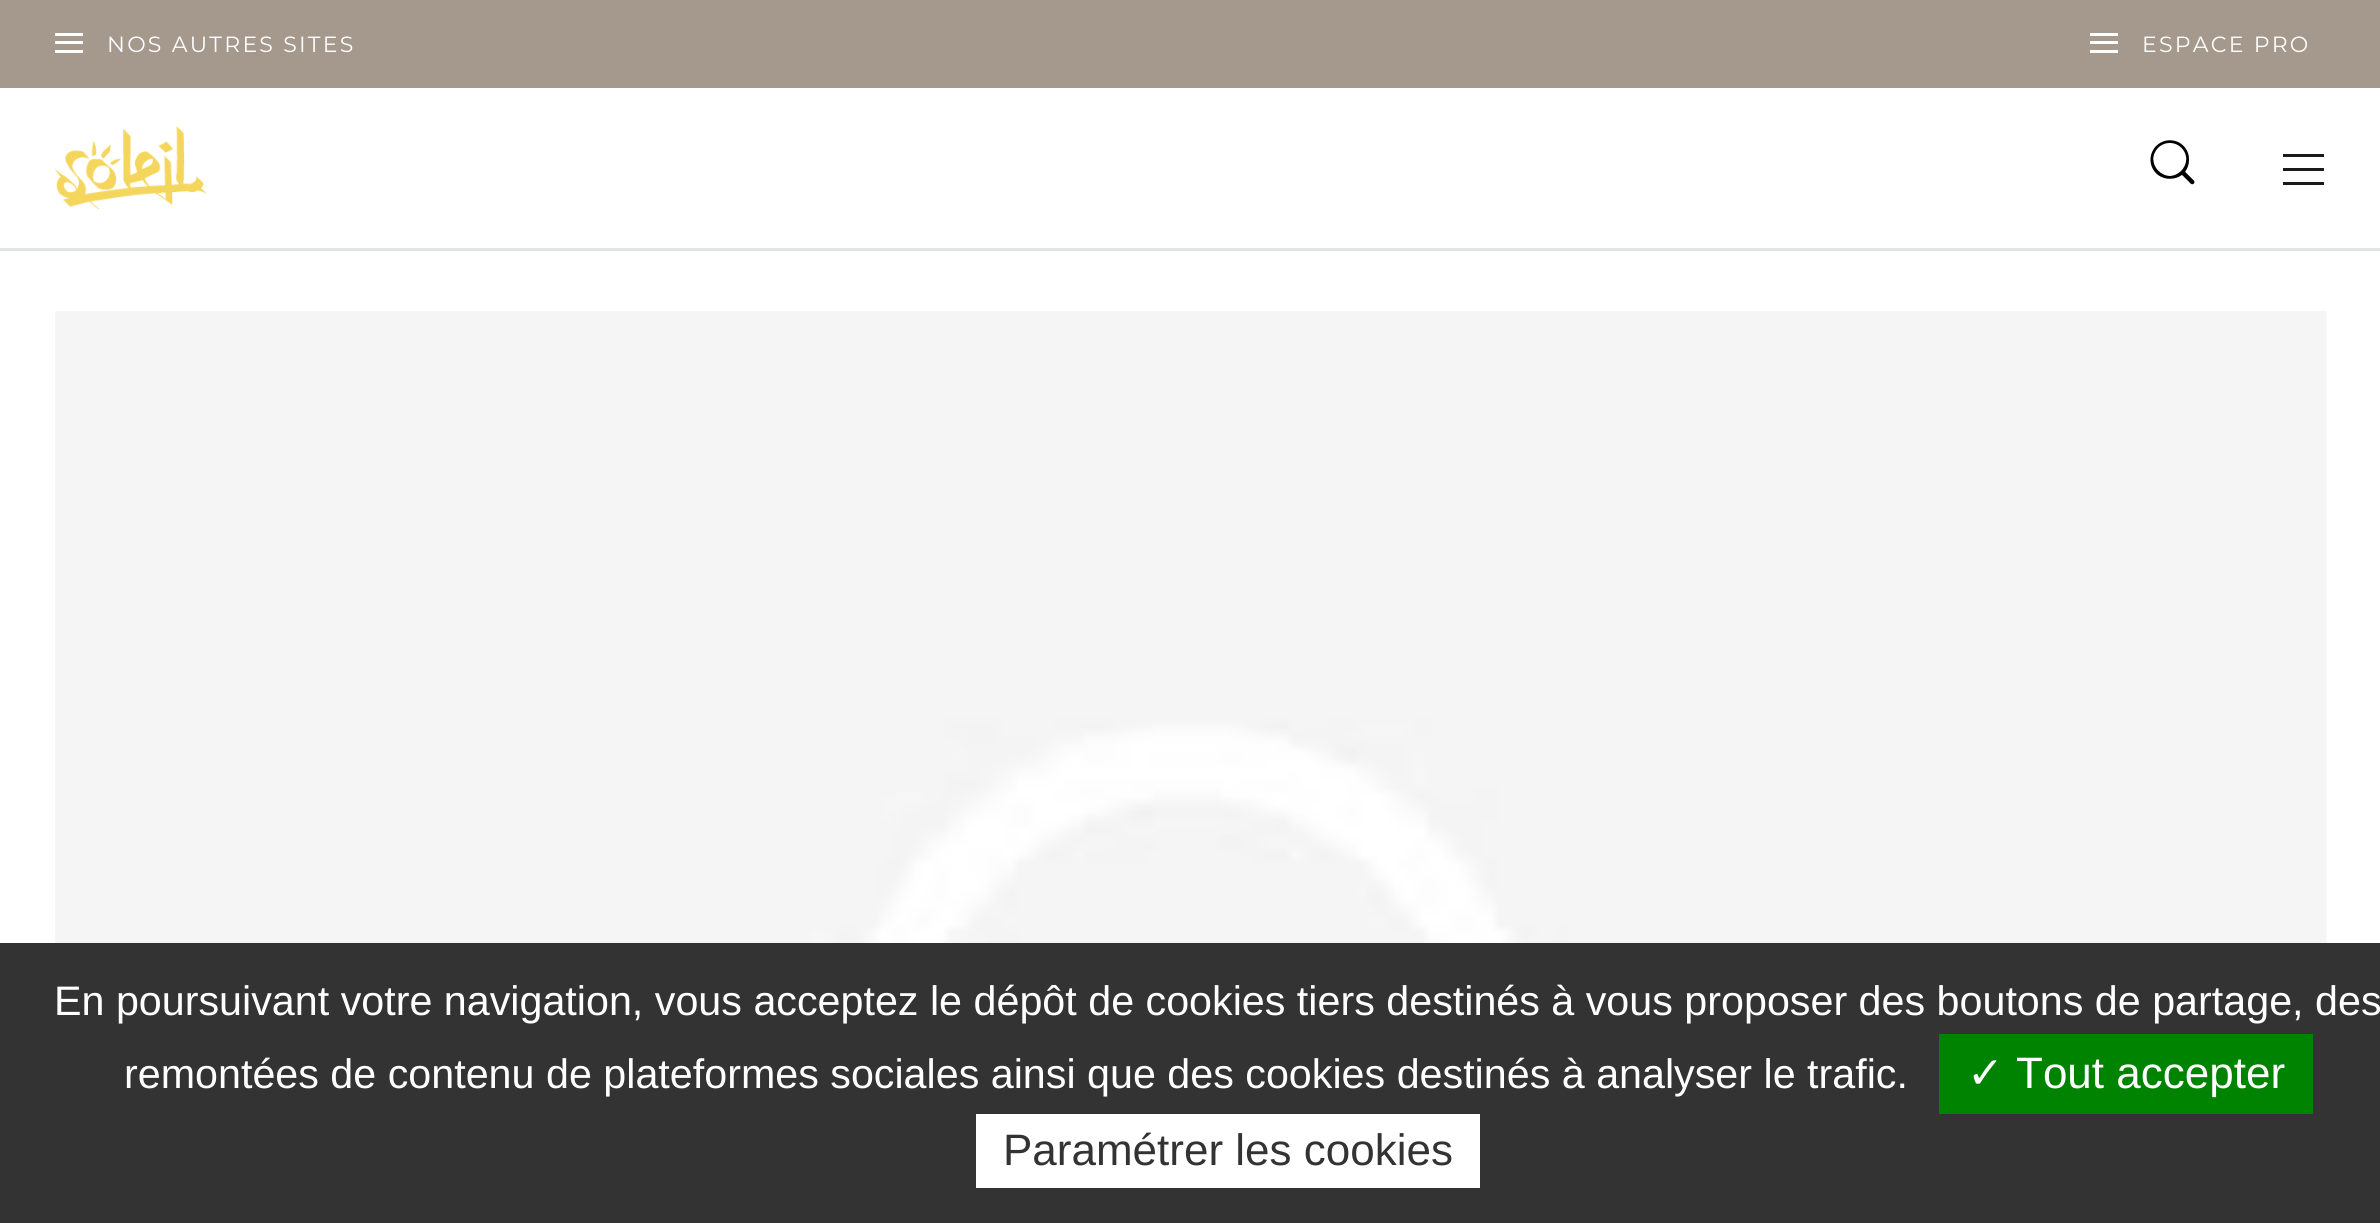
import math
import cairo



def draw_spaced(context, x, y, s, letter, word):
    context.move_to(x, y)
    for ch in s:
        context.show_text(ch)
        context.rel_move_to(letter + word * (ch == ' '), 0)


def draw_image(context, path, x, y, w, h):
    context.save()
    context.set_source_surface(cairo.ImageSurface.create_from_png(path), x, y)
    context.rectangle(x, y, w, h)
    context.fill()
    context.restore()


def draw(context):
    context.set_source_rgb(1, 1, 1)
    context.paint()
    context.set_source_rgb(165 / 255, 152 / 255, 141 / 255)
    context.rectangle(0, 0, 2380, 88)
    context.fill()
    context.set_source_rgb(1, 1, 1)
    context.rectangle(55, 41, 28, 3)
    context.fill()
    context.rectangle(55, 33, 28, 3)
    context.fill()
    context.rectangle(55, 50, 28, 3)
    context.fill()
    context.rectangle(2090, 41, 28, 3)
    context.fill()
    context.rectangle(2090, 33, 28, 3)
    context.fill()
    context.rectangle(2090, 50, 28, 3)
    context.fill()
    context.set_source_rgb(227 / 255, 228 / 255, 229 / 255)
    context.rectangle(0, 248, 2380, 3)
    context.fill()
    draw_image(context, "images/1.png", 55, 126, 152, 83)
    draw_image(context, "images/2.png", 2150, 140, 45, 45)
    context.set_source_rgb(26 / 255, 26 / 255, 26 / 255)
    context.rectangle(2283, 168, 41, 3)
    context.fill()
    context.rectangle(2283, 154, 41, 3)
    context.fill()
    context.rectangle(2283, 182, 41, 3)
    context.fill()
    draw_image(context, "images/3.png", 55, 311, 2272, 632)
    context.set_source_rgb(51 / 255, 51 / 255, 51 / 255)
    context.rectangle(0, 943, 2380, 280)
    context.fill()
    context.set_source_rgb(0, 131 / 255, 0)
    context.rectangle(1939, 1034, 374, 80)
    context.fill()
    context.set_source_rgb(1, 1, 1)
    context.rectangle(976, 1114, 504, 74)
    context.fill()
    context.select_font_face("Montserrat")
    context.set_font_size(22)
    draw_spaced(context, 107, 52, "NOS AUTRES SITES", 2.25, 0)
    draw_spaced(context, 2142, 52, "ESPACE PRO", 2.25, 0)
    context.select_font_face("Liberation Sans")
    context.set_font_size(41.25)
    context.move_to(54, 1015)
    context.show_text("En poursuivant votre navigation, vous acceptez le dépôt de cookies tiers destinés à vous proposer des boutons de partage, des")
    context.move_to(124, 1088)
    context.show_text("remontées de contenu de plateformes sociales ainsi que des cookies destinés à analyser le trafic.")
    context.select_font_face("DejaVu Sans")
    context.set_font_size(44)
    context.move_to(1967, 1088)
    context.show_text("✓")
    context.select_font_face("Liberation Sans")
    context.move_to(2016, 1088)
    context.show_text("Tout accepter")
    context.set_source_rgb(51 / 255, 51 / 255, 51 / 255)
    context.move_to(1003, 1165)
    context.show_text("Paramétrer les cookies")


surface = cairo.ImageSurface(cairo.Format.RGB24, 2380, 1223)
context = cairo.Context(surface)
options = cairo.FontOptions()
options.set_hint_metrics(cairo.HintMetrics.OFF)
options.set_hint_style(cairo.HintStyle.NONE)
context.set_font_options(options)
context.set_miter_limit(4)
draw(context)
surface.write_to_png("out.png")
